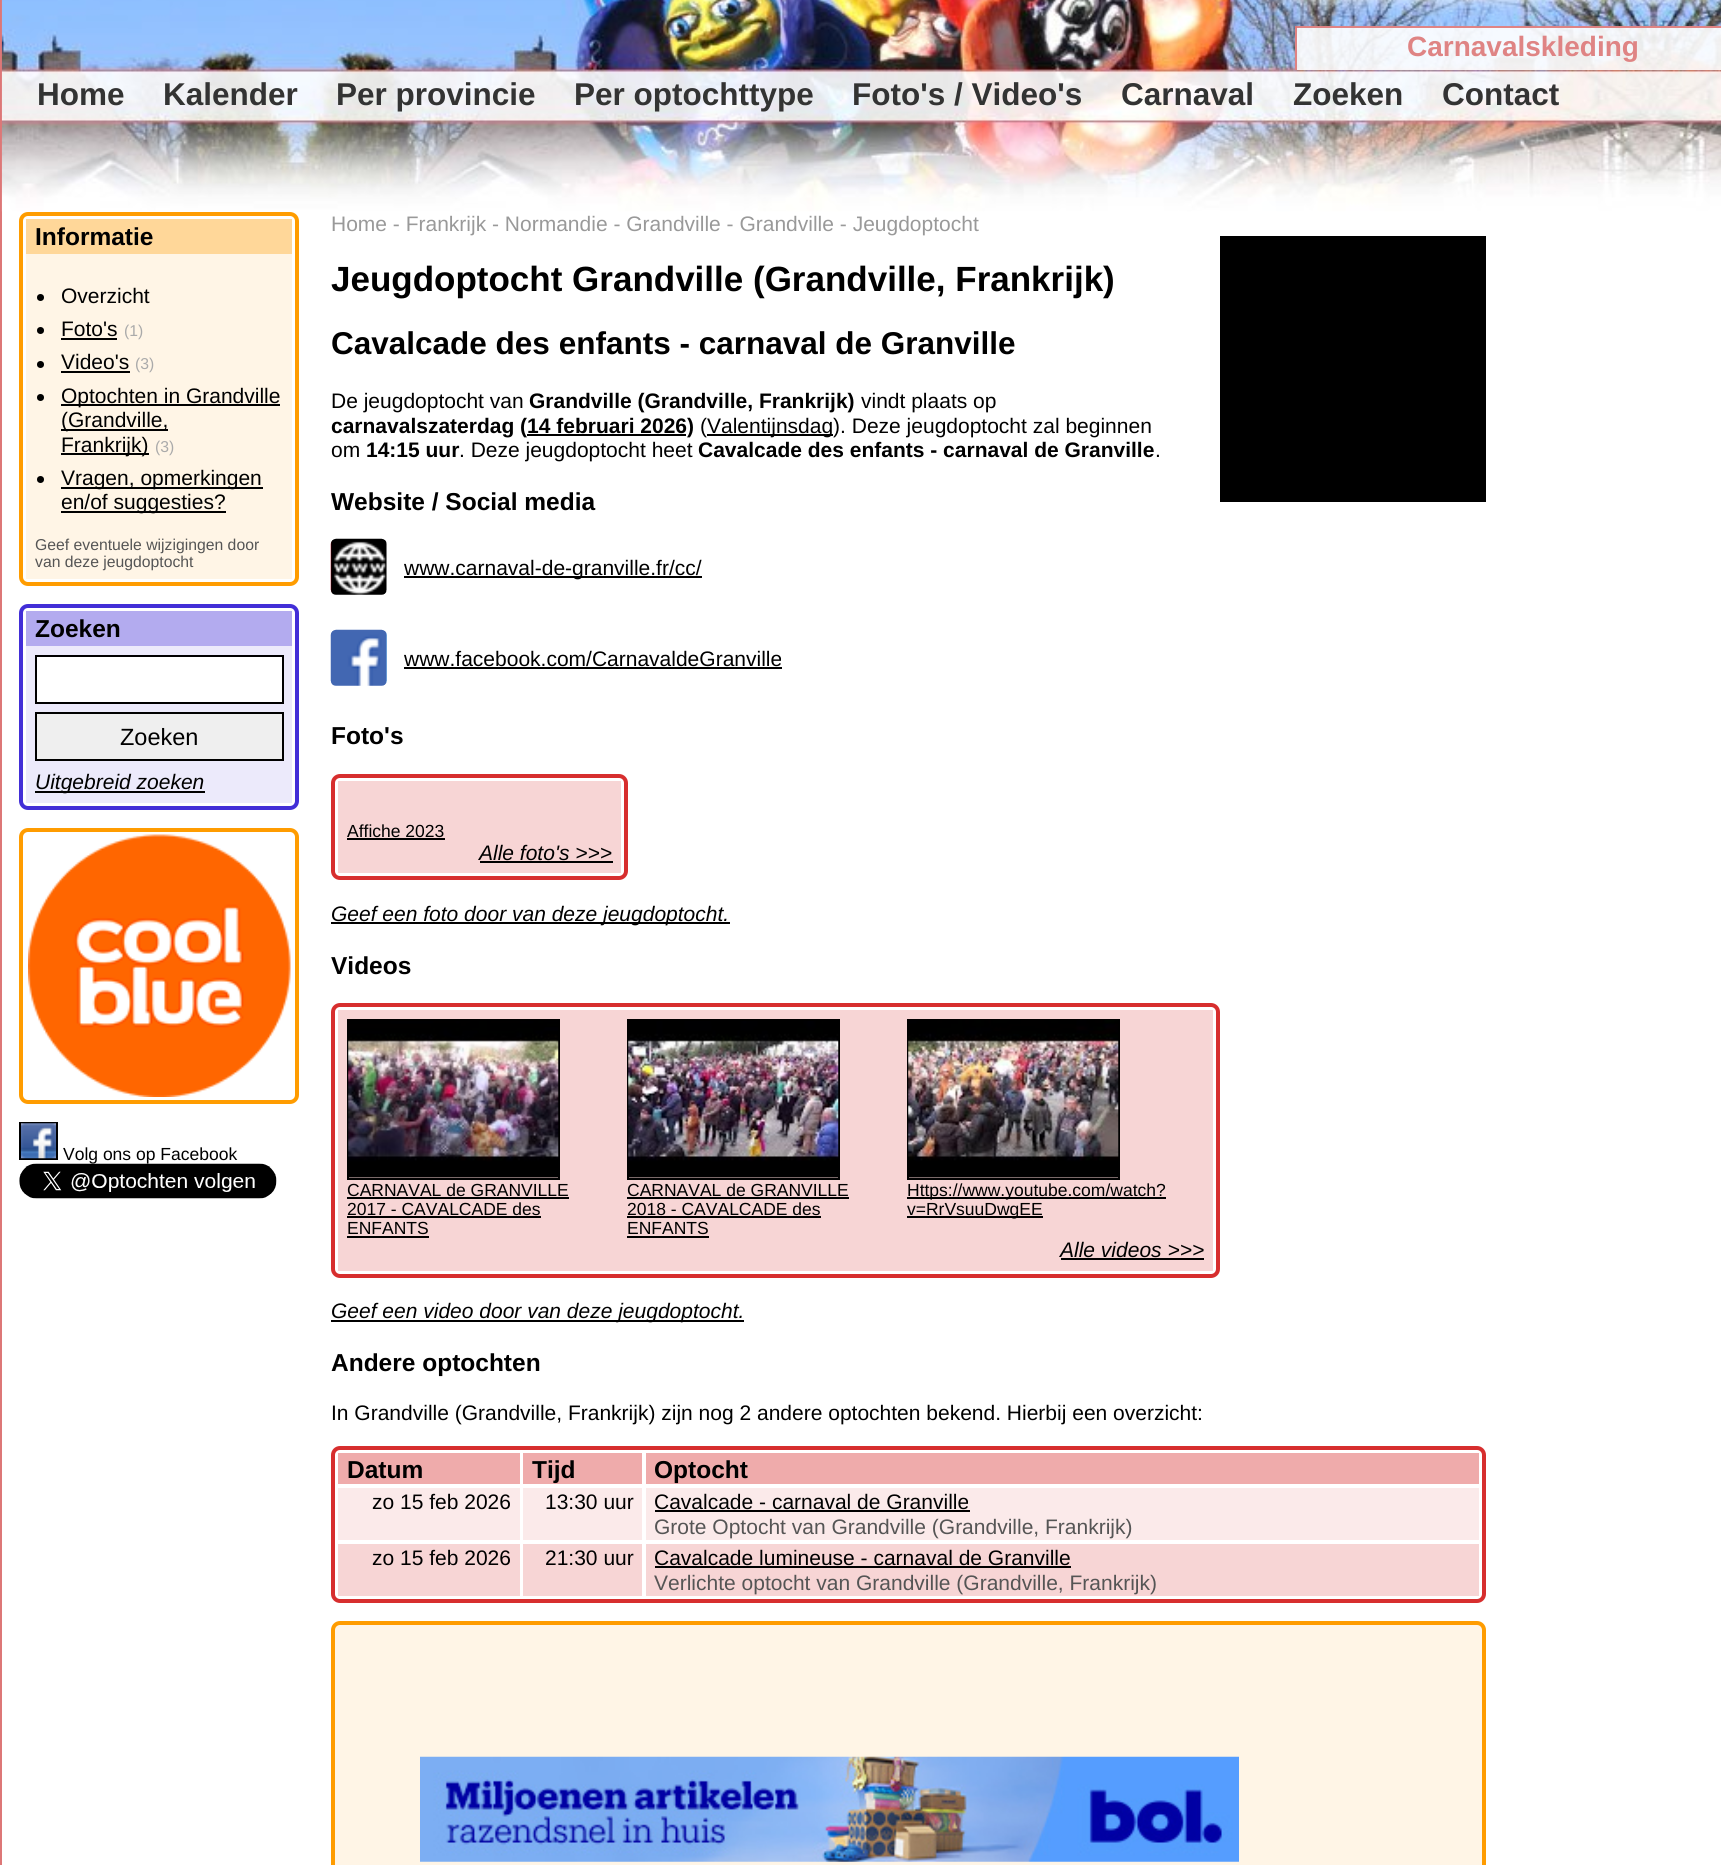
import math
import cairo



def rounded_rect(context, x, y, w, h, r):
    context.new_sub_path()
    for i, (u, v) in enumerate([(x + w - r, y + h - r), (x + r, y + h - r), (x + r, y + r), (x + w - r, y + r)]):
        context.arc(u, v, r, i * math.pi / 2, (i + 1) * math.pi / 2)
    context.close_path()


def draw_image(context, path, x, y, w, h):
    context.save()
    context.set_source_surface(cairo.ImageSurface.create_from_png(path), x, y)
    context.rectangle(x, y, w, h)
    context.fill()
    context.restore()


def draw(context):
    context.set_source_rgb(1, 1, 1)
    context.paint()
    context.set_source_rgb(221 / 255, 119 / 255, 119 / 255)
    context.rectangle(0, 0, 2, 1865)
    context.fill()
    draw_image(context, "images/1.png", 1, 0, 1720, 212)
    context.set_source_rgba(1, 1, 1, 0.9)
    context.rectangle(1295, 26, 426, 44)
    context.fill()
    context.set_source_rgba(221 / 255, 119 / 255, 119 / 255, 0.9)
    context.rectangle(1295, 26, 426, 2)
    context.fill()
    context.rectangle(1295, 26, 2, 44)
    context.fill()
    rounded_rect(context, 21, 214, 276, 370, 7)
    context.set_source_rgb(1, 156 / 255, 0)
    context.set_line_width(4)
    context.stroke()
    context.set_source_rgb(1, 215 / 255, 153 / 255)
    context.rectangle(26, 219, 266, 35)
    context.fill()
    context.set_source_rgb(1, 245 / 255, 230 / 255)
    context.rectangle(26, 254, 266, 325)
    context.fill()
    context.set_source_rgb(0, 0, 0)
    context.arc(40.5, 297.5, 3.5, 0, 2 * math.pi)
    context.fill()
    context.arc(40.5, 330.5, 3.5, 0, 2 * math.pi)
    context.fill()
    context.rectangle(61, 338, 56, 2)
    context.fill()
    context.arc(40.5, 364.5, 3.5, 0, 2 * math.pi)
    context.fill()
    context.rectangle(61, 371, 69, 2)
    context.fill()
    context.arc(40.5, 397.5, 3.5, 0, 2 * math.pi)
    context.fill()
    context.rectangle(61, 404, 219, 2)
    context.fill()
    context.rectangle(61, 429, 107, 2)
    context.fill()
    context.rectangle(61, 453, 88, 2)
    context.fill()
    context.arc(40.5, 479.5, 3.5, 0, 2 * math.pi)
    context.fill()
    context.rectangle(61, 487, 202, 2)
    context.fill()
    context.rectangle(61, 511, 165, 2)
    context.fill()
    rounded_rect(context, 21, 606, 276, 202, 7)
    context.set_source_rgb(66 / 255, 46 / 255, 215 / 255)
    context.stroke()
    context.set_source_rgb(179 / 255, 171 / 255, 239 / 255)
    context.rectangle(26, 611, 266, 35)
    context.fill()
    context.set_source_rgb(236 / 255, 234 / 255, 251 / 255)
    context.rectangle(26, 646, 266, 157)
    context.fill()
    context.set_source_rgb(1, 1, 1)
    context.rectangle(36, 656, 247, 47)
    context.fill_preserve()
    context.set_source_rgb(0, 0, 0)
    context.set_line_width(2)
    context.stroke()
    context.set_source_rgb(239 / 255, 239 / 255, 239 / 255)
    context.rectangle(36, 713, 247, 47)
    context.fill_preserve()
    context.set_source_rgb(0, 0, 0)
    context.stroke()
    context.rectangle(35, 791, 170, 2)
    context.fill()
    rounded_rect(context, 21, 830, 276, 272, 7)
    context.set_source_rgb(1, 156 / 255, 0)
    context.set_line_width(4)
    context.stroke()
    draw_image(context, "images/2.png", 28, 834, 263, 263)
    context.rectangle(20, 1123, 37, 36)
    context.set_source_rgb(0, 0, 0)
    context.set_line_width(2)
    context.stroke()
    draw_image(context, "images/3.png", 21, 1123, 35, 36)
    context.rectangle(1220, 236, 266, 266)
    context.fill()
    context.rectangle(527, 434, 159, 2)
    context.fill()
    context.rectangle(707, 434, 126, 2)
    context.fill()
    draw_image(context, "images/5.png", 330, 538, 57, 57)
    context.rectangle(404, 576, 298, 2)
    context.fill()
    draw_image(context, "images/6.png", 330, 629, 57, 57)
    context.rectangle(404, 667, 378, 2)
    context.fill()
    rounded_rect(context, 333, 776, 293, 102, 7)
    context.set_source_rgb(215 / 255, 46 / 255, 46 / 255)
    context.set_line_width(4)
    context.stroke()
    context.set_source_rgb(247 / 255, 213 / 255, 213 / 255)
    context.rectangle(338, 781, 283, 92)
    context.fill()
    context.set_source_rgb(0, 0, 0)
    context.rectangle(347, 838, 98, 2)
    context.fill()
    context.rectangle(480, 861, 133, 2)
    context.fill()
    context.rectangle(331, 922, 399, 2)
    context.fill()
    rounded_rect(context, 333, 1005, 885, 271, 7)
    context.set_source_rgb(215 / 255, 46 / 255, 46 / 255)
    context.stroke()
    context.set_source_rgb(247 / 255, 213 / 255, 213 / 255)
    context.rectangle(338, 1010, 875, 261)
    context.fill()
    context.rectangle(348, 1020, 211, 159)
    context.set_source_rgb(0, 0, 0)
    context.set_line_width(2)
    context.stroke()
    draw_image(context, "images/7.png", 348, 1021, 211, 157)
    context.rectangle(347, 1197, 222, 2)
    context.fill()
    context.rectangle(347, 1216, 194, 2)
    context.fill()
    context.rectangle(347, 1236, 82, 2)
    context.fill()
    context.rectangle(628, 1020, 211, 159)
    context.stroke()
    draw_image(context, "images/8.png", 628, 1021, 211, 157)
    context.rectangle(627, 1197, 222, 2)
    context.fill()
    context.rectangle(627, 1216, 194, 2)
    context.fill()
    context.rectangle(627, 1236, 82, 2)
    context.fill()
    context.rectangle(908, 1020, 211, 159)
    context.stroke()
    draw_image(context, "images/9.png", 908, 1020, 211, 158)
    context.rectangle(907, 1197, 259, 2)
    context.fill()
    context.rectangle(907, 1216, 136, 2)
    context.fill()
    context.rectangle(1061, 1258, 143, 2)
    context.fill()
    context.rectangle(331, 1320, 413, 2)
    context.fill()
    rounded_rect(context, 333, 1448, 1151, 153, 7)
    context.set_source_rgb(215 / 255, 46 / 255, 46 / 255)
    context.set_line_width(4)
    context.stroke()
    context.set_source_rgb(239 / 255, 171 / 255, 171 / 255)
    context.rectangle(338, 1453, 182, 31)
    context.fill()
    context.rectangle(523, 1453, 119, 31)
    context.fill()
    context.rectangle(646, 1453, 833, 31)
    context.fill()
    context.set_source_rgb(251 / 255, 234 / 255, 234 / 255)
    context.rectangle(338, 1488, 182, 52)
    context.fill()
    context.rectangle(523, 1488, 119, 52)
    context.fill()
    context.rectangle(646, 1488, 833, 52)
    context.fill()
    context.set_source_rgb(0, 0, 0)
    context.rectangle(655, 1510, 315, 2)
    context.fill()
    context.set_source_rgb(247 / 255, 213 / 255, 213 / 255)
    context.rectangle(338, 1544, 182, 52)
    context.fill()
    context.rectangle(523, 1544, 119, 52)
    context.fill()
    context.rectangle(646, 1544, 833, 52)
    context.fill()
    context.set_source_rgb(0, 0, 0)
    context.rectangle(655, 1566, 416, 2)
    context.fill()
    context.set_source_rgb(1, 245 / 255, 230 / 255)
    rounded_rect(context, 333, 1623, 1151, 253, 7)
    context.fill_preserve()
    context.set_source_rgb(1, 156 / 255, 0)
    context.stroke()
    draw_image(context, "images/10.png", 420, 1756, 819, 106)
    context.select_font_face("Liberation Sans", cairo.FontSlant.NORMAL, cairo.FontWeight.BOLD)
    context.set_font_size(28)
    context.set_source_rgb(223 / 255, 132 / 255, 132 / 255)
    context.move_to(1407, 56)
    context.show_text("Carnavalskleding")
    context.set_font_size(31.5)
    context.set_source_rgb(51 / 255, 51 / 255, 51 / 255)
    context.move_to(37, 105)
    context.show_text("Home")
    context.move_to(163, 105)
    context.show_text("Kalender")
    context.move_to(336, 105)
    context.show_text("Per provincie")
    context.move_to(574, 105)
    context.show_text("Per optochttype")
    context.move_to(852, 105)
    context.show_text("Foto's / Video's")
    context.move_to(1121, 105)
    context.show_text("Carnaval")
    context.move_to(1293, 105)
    context.show_text("Zoeken")
    context.move_to(1442, 105)
    context.show_text("Contact")
    context.set_font_size(24.5)
    context.set_source_rgb(0, 0, 0)
    context.move_to(35, 245)
    context.show_text("Informatie")
    context.select_font_face("Liberation Sans")
    context.set_font_size(21)
    context.move_to(61, 303)
    context.show_text("Overzicht")
    context.move_to(61, 336)
    context.show_text("Foto's")
    context.set_font_size(15.75)
    context.set_source_rgb(170 / 255, 170 / 255, 170 / 255)
    context.move_to(124, 336)
    context.show_text("(1)")
    context.set_font_size(21)
    context.set_source_rgb(0, 0, 0)
    context.move_to(61, 369)
    context.show_text("Video's")
    context.set_font_size(15.75)
    context.set_source_rgb(170 / 255, 170 / 255, 170 / 255)
    context.move_to(135, 369)
    context.show_text("(3)")
    context.set_font_size(21)
    context.set_source_rgb(0, 0, 0)
    context.move_to(61, 403)
    context.show_text("Optochten in Grandville")
    context.move_to(61, 427)
    context.show_text("(Grandville,")
    context.move_to(61, 452)
    context.show_text("Frankrijk)")
    context.set_font_size(15.75)
    context.set_source_rgb(170 / 255, 170 / 255, 170 / 255)
    context.move_to(155, 452)
    context.show_text("(3)")
    context.set_font_size(21)
    context.set_source_rgb(0, 0, 0)
    context.move_to(61, 485)
    context.show_text("Vragen, opmerkingen")
    context.move_to(61, 509)
    context.show_text("en/of suggesties?")
    context.set_font_size(15.75)
    context.set_source_rgb(85 / 255, 85 / 255, 85 / 255)
    context.move_to(35, 550)
    context.show_text("Geef eventuele wijzigingen door")
    context.move_to(35, 567)
    context.show_text("van deze jeugdoptocht")
    context.select_font_face("Liberation Sans", cairo.FontSlant.NORMAL, cairo.FontWeight.BOLD)
    context.set_font_size(24.5)
    context.set_source_rgb(0, 0, 0)
    context.move_to(35, 637)
    context.show_text("Zoeken")
    context.select_font_face("Liberation Sans")
    context.set_font_size(23.5)
    context.move_to(120, 745)
    context.show_text("Zoeken")
    context.select_font_face("Liberation Sans", cairo.FontSlant.ITALIC)
    context.set_font_size(21)
    context.move_to(35, 789)
    context.show_text("Uitgebreid zoeken")
    context.select_font_face("Liberation Sans")
    context.set_font_size(17.5)
    context.move_to(63, 1160)
    context.show_text("Volg ons op Facebook")
    draw_image(context, "images/4.png", 19, 1163, 258, 36)
    context.set_font_size(21)
    context.set_source_rgb(153 / 255, 153 / 255, 153 / 255)
    context.move_to(331, 231)
    context.show_text("Home - Frankrijk - Normandie - Grandville - Grandville - Jeugdoptocht")
    context.select_font_face("Liberation Sans", cairo.FontSlant.NORMAL, cairo.FontWeight.BOLD)
    context.set_font_size(35)
    context.set_source_rgb(0, 0, 0)
    context.move_to(331, 291)
    context.show_text("Jeugdoptocht Grandville (Grandville, Frankrijk)")
    context.set_font_size(31.5)
    context.move_to(331, 354)
    context.show_text("Cavalcade des enfants - carnaval de Granville")
    context.select_font_face("Liberation Sans")
    context.set_font_size(21)
    context.move_to(331, 408)
    context.show_text("De jeugdoptocht van")
    context.select_font_face("Liberation Sans", cairo.FontSlant.NORMAL, cairo.FontWeight.BOLD)
    context.move_to(529, 408)
    context.show_text("Grandville (Grandville, Frankrijk)")
    context.select_font_face("Liberation Sans")
    context.move_to(861, 408)
    context.show_text("vindt plaats op")
    context.select_font_face("Liberation Sans", cairo.FontSlant.NORMAL, cairo.FontWeight.BOLD)
    context.move_to(331, 433)
    context.show_text("carnavalszaterdag (14 februari 2026)")
    context.select_font_face("Liberation Sans")
    context.move_to(700, 433)
    context.show_text("(")
    context.move_to(707, 433)
    context.show_text("Valentijnsdag). Deze jeugdoptocht zal beginnen")
    context.move_to(331, 457)
    context.show_text("om")
    context.select_font_face("Liberation Sans", cairo.FontSlant.NORMAL, cairo.FontWeight.BOLD)
    context.move_to(366, 457)
    context.show_text("14:15 uur")
    context.select_font_face("Liberation Sans")
    context.move_to(459, 457)
    context.show_text(". Deze jeugdoptocht heet")
    context.select_font_face("Liberation Sans", cairo.FontSlant.NORMAL, cairo.FontWeight.BOLD)
    context.move_to(698, 457)
    context.show_text("Cavalcade des enfants - carnaval de Granville")
    context.select_font_face("Liberation Sans")
    context.move_to(1155, 457)
    context.show_text(".")
    context.select_font_face("Liberation Sans", cairo.FontSlant.NORMAL, cairo.FontWeight.BOLD)
    context.set_font_size(24.5)
    context.move_to(331, 510)
    context.show_text("Website / Social media")
    context.select_font_face("Liberation Sans")
    context.set_font_size(21)
    context.move_to(404, 575)
    context.show_text("www.carnaval-de-granville.fr/cc/")
    context.move_to(404, 666)
    context.show_text("www.facebook.com/CarnavaldeGranville")
    context.select_font_face("Liberation Sans", cairo.FontSlant.NORMAL, cairo.FontWeight.BOLD)
    context.set_font_size(24.5)
    context.move_to(331, 744)
    context.show_text("Foto's")
    context.select_font_face("Liberation Sans")
    context.set_font_size(17.5)
    context.move_to(347, 837)
    context.show_text("Affiche 2023")
    context.select_font_face("Liberation Sans", cairo.FontSlant.ITALIC)
    context.set_font_size(21)
    context.move_to(479, 860)
    context.show_text("Alle foto's >>>")
    context.move_to(331, 921)
    context.show_text("Geef een foto door van deze jeugdoptocht.")
    context.select_font_face("Liberation Sans", cairo.FontSlant.NORMAL, cairo.FontWeight.BOLD)
    context.set_font_size(24.5)
    context.move_to(331, 974)
    context.show_text("Videos")
    context.select_font_face("Liberation Sans")
    context.set_font_size(17.5)
    context.move_to(347, 1196)
    context.show_text("CARNAVAL de GRANVILLE")
    context.move_to(347, 1215)
    context.show_text("2017 - CAVALCADE des")
    context.move_to(347, 1234)
    context.show_text("ENFANTS")
    context.move_to(627, 1196)
    context.show_text("CARNAVAL de GRANVILLE")
    context.move_to(627, 1215)
    context.show_text("2018 - CAVALCADE des")
    context.move_to(627, 1234)
    context.show_text("ENFANTS")
    context.move_to(907, 1196)
    context.show_text("Https://www.youtube.com/watch?")
    context.move_to(907, 1215)
    context.show_text("v=RrVsuuDwgEE")
    context.select_font_face("Liberation Sans", cairo.FontSlant.ITALIC)
    context.set_font_size(21)
    context.move_to(1060, 1257)
    context.show_text("Alle videos >>>")
    context.move_to(331, 1318)
    context.show_text("Geef een video door van deze jeugdoptocht.")
    context.select_font_face("Liberation Sans", cairo.FontSlant.NORMAL, cairo.FontWeight.BOLD)
    context.set_font_size(24.5)
    context.move_to(331, 1371)
    context.show_text("Andere optochten")
    context.select_font_face("Liberation Sans")
    context.set_font_size(21)
    context.move_to(331, 1420)
    context.show_text("In Grandville (Grandville, Frankrijk) zijn nog 2 andere optochten bekend. Hierbij een overzicht:")
    context.select_font_face("Liberation Sans", cairo.FontSlant.NORMAL, cairo.FontWeight.BOLD)
    context.set_font_size(24.5)
    context.move_to(347, 1478)
    context.show_text("Datum")
    context.move_to(532, 1478)
    context.show_text("Tijd")
    context.move_to(654, 1478)
    context.show_text("Optocht")
    context.select_font_face("Liberation Sans")
    context.set_font_size(21)
    context.move_to(372, 1509)
    context.show_text("zo 15 feb 2026")
    context.move_to(545, 1509)
    context.show_text("13:30 uur")
    context.move_to(654, 1509)
    context.show_text("Cavalcade - carnaval de Granville")
    context.set_source_rgb(85 / 255, 85 / 255, 85 / 255)
    context.move_to(654, 1534)
    context.show_text("Grote Optocht van Grandville (Grandville, Frankrijk)")
    context.set_source_rgb(0, 0, 0)
    context.move_to(372, 1565)
    context.show_text("zo 15 feb 2026")
    context.move_to(545, 1565)
    context.show_text("21:30 uur")
    context.move_to(654, 1565)
    context.show_text("Cavalcade lumineuse - carnaval de Granville")
    context.set_source_rgb(85 / 255, 85 / 255, 85 / 255)
    context.move_to(654, 1590)
    context.show_text("Verlichte optocht van Grandville (Grandville, Frankrijk)")


surface = cairo.ImageSurface(cairo.Format.RGB24, 1721, 1865)
context = cairo.Context(surface)
options = cairo.FontOptions()
options.set_hint_metrics(cairo.HintMetrics.OFF)
options.set_hint_style(cairo.HintStyle.NONE)
context.set_font_options(options)
context.set_miter_limit(4)
draw(context)
surface.write_to_png("out.png")
